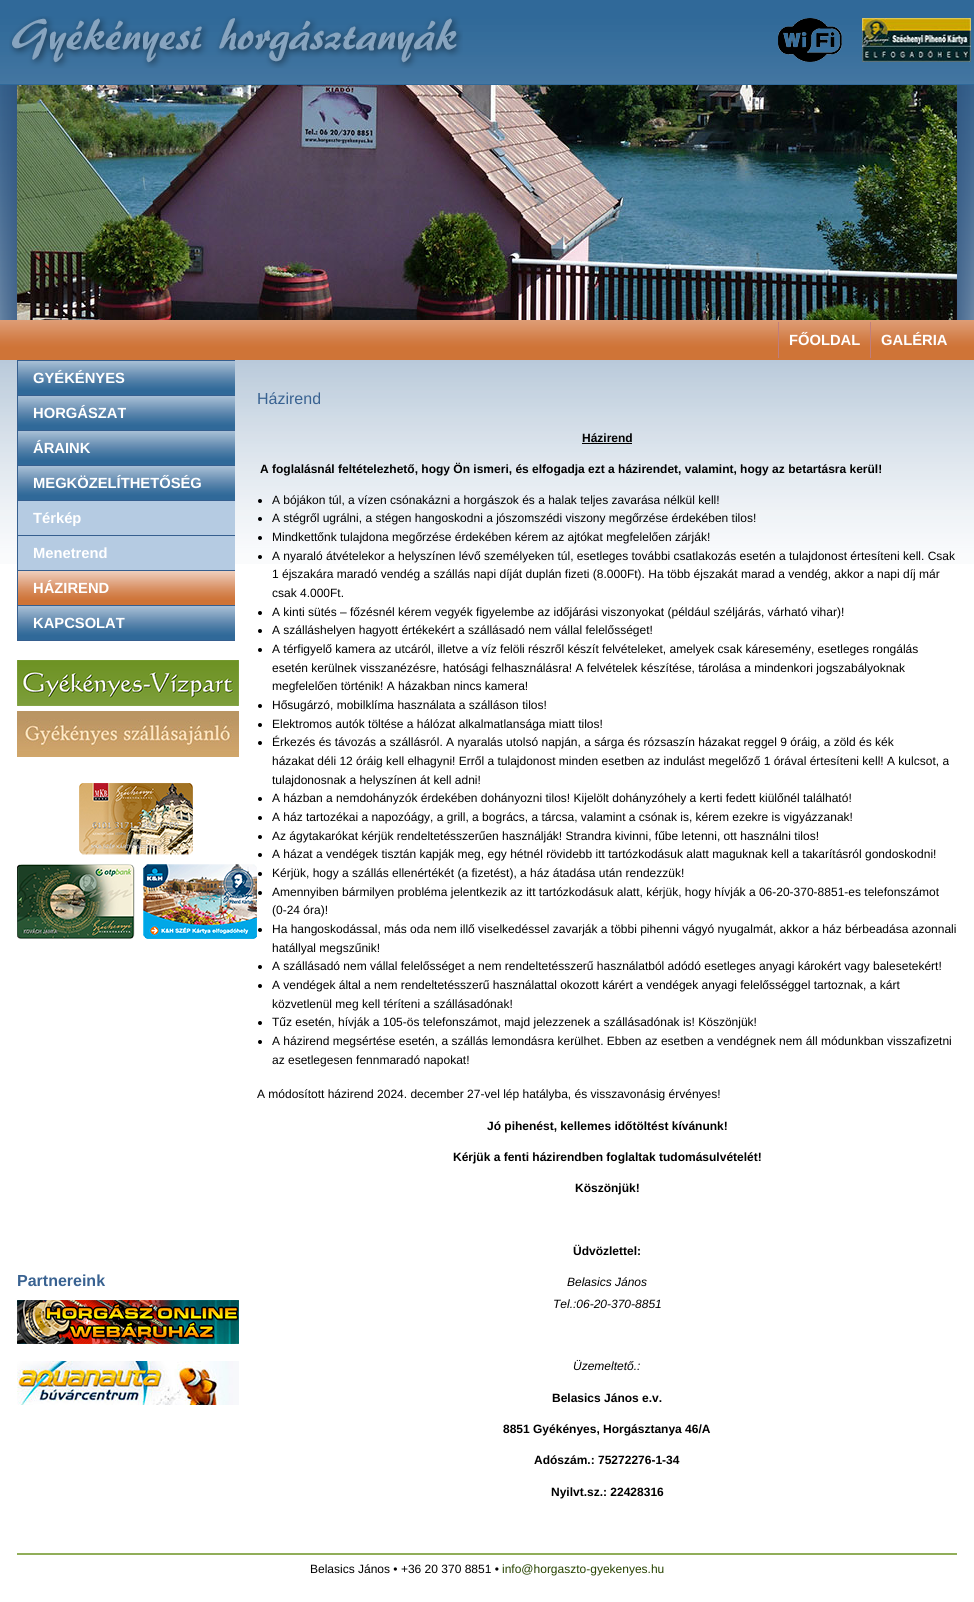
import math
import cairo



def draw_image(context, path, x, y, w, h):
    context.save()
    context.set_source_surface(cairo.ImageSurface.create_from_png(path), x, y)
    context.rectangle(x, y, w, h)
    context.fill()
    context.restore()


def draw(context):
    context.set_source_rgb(1, 1, 1)
    context.paint()
    draw_image(context, "images/1.png", 0, 0, 974, 564)
    draw_image(context, "images/2.png", 0, 85, 974, 235)
    draw_image(context, "images/3.png", 9, 16, 454, 52)
    draw_image(context, "images/4.png", 778, 18, 64, 44)
    draw_image(context, "images/5.png", 862, 18, 109, 44)
    draw_image(context, "images/6.png", 17, 85, 940, 235)
    context.set_source_rgb(192 / 255, 126 / 255, 126 / 255)
    context.rectangle(778, 322, 1, 36)
    context.fill()
    context.rectangle(870, 322, 1, 36)
    context.fill()
    context.set_source_rgb(145 / 255, 174 / 255, 89 / 255)
    context.rectangle(17, 1553, 940, 2)
    context.fill()
    context.set_source_rgb(54 / 255, 95 / 255, 143 / 255)
    context.rectangle(17, 360, 218, 281)
    context.fill()
    draw_image(context, "images/7.png", 18, 361, 217, 34)
    draw_image(context, "images/7.png", 18, 396, 217, 34)
    draw_image(context, "images/7.png", 18, 431, 217, 34)
    draw_image(context, "images/7.png", 18, 466, 217, 34)
    context.set_source_rgb(181 / 255, 203 / 255, 226 / 255)
    context.rectangle(18, 501, 217, 34)
    context.fill()
    context.rectangle(18, 536, 217, 34)
    context.fill()
    draw_image(context, "images/8.png", 18, 571, 217, 34)
    draw_image(context, "images/7.png", 18, 606, 217, 34)
    draw_image(context, "images/9.png", 17, 660, 222, 46)
    draw_image(context, "images/10.png", 17, 711, 222, 46)
    draw_image(context, "images/11.png", 17, 783, 240, 156)
    draw_image(context, "images/12.png", 17, 1300, 222, 44)
    draw_image(context, "images/13.png", 17, 1361, 222, 44)
    context.set_source_rgb(0, 0, 0)
    context.rectangle(582, 443, 50, 1)
    context.fill()
    context.arc(260, 501, 2, 0, 2 * math.pi)
    context.fill()
    context.arc(260, 519, 2, 0, 2 * math.pi)
    context.fill()
    context.arc(260, 538, 2, 0, 2 * math.pi)
    context.fill()
    context.arc(260, 557, 2, 0, 2 * math.pi)
    context.fill()
    context.arc(260, 613, 2, 0, 2 * math.pi)
    context.fill()
    context.arc(260, 631, 2, 0, 2 * math.pi)
    context.fill()
    context.arc(260, 650, 2, 0, 2 * math.pi)
    context.fill()
    context.arc(260, 706, 2, 0, 2 * math.pi)
    context.fill()
    context.arc(260, 725, 2, 0, 2 * math.pi)
    context.fill()
    context.arc(260, 743, 2, 0, 2 * math.pi)
    context.fill()
    context.arc(260, 799, 2, 0, 2 * math.pi)
    context.fill()
    context.arc(260, 818, 2, 0, 2 * math.pi)
    context.fill()
    context.arc(260, 837, 2, 0, 2 * math.pi)
    context.fill()
    context.arc(260, 855, 2, 0, 2 * math.pi)
    context.fill()
    context.arc(260, 874, 2, 0, 2 * math.pi)
    context.fill()
    context.arc(260, 893, 2, 0, 2 * math.pi)
    context.fill()
    context.arc(260, 930, 2, 0, 2 * math.pi)
    context.fill()
    context.arc(260, 967, 2, 0, 2 * math.pi)
    context.fill()
    context.arc(260, 986, 2, 0, 2 * math.pi)
    context.fill()
    context.arc(260, 1023, 2, 0, 2 * math.pi)
    context.fill()
    context.arc(260, 1042, 2, 0, 2 * math.pi)
    context.fill()
    context.select_font_face("Liberation Sans", cairo.FontSlant.NORMAL, cairo.FontWeight.BOLD)
    context.set_font_size(14.75)
    context.set_source_rgb(1, 1, 1)
    context.move_to(789, 345)
    context.show_text("FŐOLDAL")
    context.move_to(881, 345)
    context.show_text("GALÉRIA")
    context.move_to(33, 383)
    context.show_text("GYÉKÉNYES")
    context.move_to(33, 418)
    context.show_text("HORGÁSZAT")
    context.move_to(33, 453)
    context.show_text("ÁRAINK")
    context.move_to(33, 488)
    context.show_text("MEGKÖZELÍTHETŐSÉG")
    context.move_to(33, 523)
    context.show_text("Térkép")
    context.move_to(33, 558)
    context.show_text("Menetrend")
    context.move_to(33, 593)
    context.show_text("HÁZIREND")
    context.move_to(33, 628)
    context.show_text("KAPCSOLAT")
    context.set_font_size(16)
    context.set_source_rgb(57 / 255, 98 / 255, 145 / 255)
    context.move_to(17, 1286)
    context.show_text("Partnereink")
    context.select_font_face("Liberation Sans")
    context.move_to(257, 404)
    context.show_text("Házirend")
    context.select_font_face("Liberation Sans", cairo.FontSlant.NORMAL, cairo.FontWeight.BOLD)
    context.set_font_size(12)
    context.set_source_rgb(0, 0, 0)
    context.move_to(582, 442)
    context.show_text("Házirend")
    context.move_to(260, 473)
    context.show_text("A foglalásnál feltételezhető, hogy Ön ismeri, és elfogadja ezt a házirendet, valamint, hogy az betartásra kerül!")
    context.select_font_face("Liberation Sans")
    context.move_to(272, 504)
    context.show_text("A bójákon túl, a vízen csónakázni a horgászok és a halak teljes zavarása nélkül kell!")
    context.move_to(272, 522)
    context.show_text("A stégről ugrálni, a stégen hangoskodni a jószomszédi viszony megőrzése érdekében tilos!")
    context.move_to(272, 541)
    context.show_text("Mindkettőnk tulajdona megőrzése érdekében kérem az ajtókat megfelelően zárják!")
    context.move_to(272, 560)
    context.show_text("A nyaraló átvételekor a helyszínen lévő személyeken túl, esetleges további csatlakozás esetén a tulajdonost értesíteni kell. Csak")
    context.move_to(272, 578)
    context.show_text("1 éjszakára maradó vendég a szállás napi díját duplán fizeti (8.000Ft). Ha több éjszakát marad a vendég, akkor a napi díj már")
    context.move_to(272, 597)
    context.show_text("csak 4.000Ft.")
    context.move_to(272, 616)
    context.show_text("A kinti sütés – főzésnél kérem vegyék figyelembe az időjárási viszonyokat (például széljárás, várható vihar)!")
    context.move_to(272, 634)
    context.show_text("A szálláshelyen hagyott értékekért a szállásadó nem vállal felelősséget!")
    context.move_to(272, 653)
    context.show_text("A térfigyelő kamera az utcáról, illetve a víz felöli részről készít felvételeket, amelyek csak káresemény, esetleges rongálás")
    context.move_to(272, 672)
    context.show_text("esetén kerülnek visszanézésre, hatósági felhasználásra! A felvételek készítése, tárolása a mindenkori jogszabályoknak")
    context.move_to(272, 690)
    context.show_text("megfelelően történik! A házakban nincs kamera!")
    context.move_to(272, 709)
    context.show_text("Hősugárzó, mobilklíma használata a szálláson tilos!")
    context.move_to(272, 728)
    context.show_text("Elektromos autók töltése a hálózat alkalmatlansága miatt tilos!")
    context.move_to(272, 746)
    context.show_text("Érkezés és távozás a szállásról. A nyaralás utolsó napján, a sárga és rózsaszín házakat reggel 9 óráig, a zöld és kék")
    context.move_to(272, 765)
    context.show_text("házakat déli 12 óráig kell elhagyni! Erről a tulajdonost minden esetben az indulást megelőző 1 órával értesíteni kell! A kulcsot, a")
    context.move_to(272, 784)
    context.show_text("tulajdonosnak a helyszínen át kell adni!")
    context.move_to(272, 802)
    context.show_text("A házban a nemdohányzók érdekében dohányozni tilos! Kijelölt dohányzóhely a kerti fedett kiülőnél található!")
    context.move_to(272, 821)
    context.show_text("A ház tartozékai a napozóágy, a grill, a bogrács, a tárcsa, valamint a csónak is, kérem ezekre is vigyázzanak!")
    context.move_to(272, 840)
    context.show_text("Az ágytakarókat kérjük rendeltetésszerűen használják! Strandra kivinni, fűbe letenni, ott használni tilos!")
    context.move_to(272, 858)
    context.show_text("A házat a vendégek tisztán kapják meg, egy hétnél rövidebb itt tartózkodásuk alatt maguknak kell a takarításról gondoskodni!")
    context.move_to(272, 877)
    context.show_text("Kérjük, hogy a szállás ellenértékét (a fizetést), a ház átadása után rendezzük!")
    context.move_to(272, 896)
    context.show_text("Amennyiben bármilyen probléma jelentkezik az itt tartózkodásuk alatt, kérjük, hogy hívják a 06-20-370-8851-es telefonszámot")
    context.move_to(272, 914)
    context.show_text("(0-24 óra)!")
    context.move_to(272, 933)
    context.show_text("Ha hangoskodással, más oda nem illő viselkedéssel zavarják a többi pihenni vágyó nyugalmát, akkor a ház bérbeadása azonnali")
    context.move_to(272, 952)
    context.show_text("hatállyal megszűnik!")
    context.move_to(272, 970)
    context.show_text("A szállásadó nem vállal felelősséget a nem rendeltetésszerű használatból adódó esetleges anyagi károkért vagy balesetekért!")
    context.move_to(272, 989)
    context.show_text("A vendégek által a nem rendeltetésszerű használattal okozott kárért a vendégek anyagi felelősséggel tartoznak, a kárt")
    context.move_to(272, 1008)
    context.show_text("közvetlenül meg kell téríteni a szállásadónak!")
    context.move_to(272, 1026)
    context.show_text("Tűz esetén, hívják a 105-ös telefonszámot, majd jelezzenek a szállásadónak is! Köszönjük!")
    context.move_to(272, 1045)
    context.show_text("A házirend megsértése esetén, a szállás lemondásra kerülhet. Ebben az esetben a vendégnek nem áll módunkban visszafizetni")
    context.move_to(272, 1064)
    context.show_text("az esetlegesen fennmaradó napokat!")
    context.move_to(257, 1098)
    context.show_text("A módosított házirend 2024. december 27-vel lép hatályba, és visszavonásig érvényes!")
    context.select_font_face("Liberation Sans", cairo.FontSlant.NORMAL, cairo.FontWeight.BOLD)
    context.move_to(487, 1130)
    context.show_text("Jó pihenést, kellemes időtöltést kívánunk!")
    context.move_to(453, 1161)
    context.show_text("Kérjük a fenti házirendben foglaltak tudomásulvételét!")
    context.move_to(575, 1192)
    context.show_text("Köszönjük!")
    context.move_to(573, 1255)
    context.show_text("Üdvözlettel:")
    context.select_font_face("Liberation Sans", cairo.FontSlant.ITALIC)
    context.move_to(567, 1286)
    context.show_text("Belasics János")
    context.move_to(553, 1308)
    context.show_text("Tel.:06-20-370-8851")
    context.move_to(573, 1370)
    context.show_text("Üzemeltető.:")
    context.select_font_face("Liberation Sans", cairo.FontSlant.NORMAL, cairo.FontWeight.BOLD)
    context.move_to(552, 1402)
    context.show_text("Belasics János e.v.")
    context.move_to(503, 1433)
    context.show_text("8851 Gyékényes, Horgásztanya 46/A")
    context.move_to(534, 1464)
    context.show_text("Adószám.: 75272276-1-34")
    context.move_to(551, 1496)
    context.show_text("Nyilvt.sz.: 22428316")
    context.select_font_face("Liberation Sans")
    context.move_to(310, 1573)
    context.show_text("Belasics János • +36 20 370 8851 •")
    context.set_source_rgb(39 / 255, 67 / 255, 0)
    context.move_to(502, 1573)
    context.show_text("info@horgaszto-gyekenyes.hu")


surface = cairo.ImageSurface(cairo.Format.RGB24, 974, 1602)
context = cairo.Context(surface)
options = cairo.FontOptions()
options.set_hint_metrics(cairo.HintMetrics.OFF)
options.set_hint_style(cairo.HintStyle.NONE)
context.set_font_options(options)
context.set_miter_limit(4)
draw(context)
surface.write_to_png("out.png")
